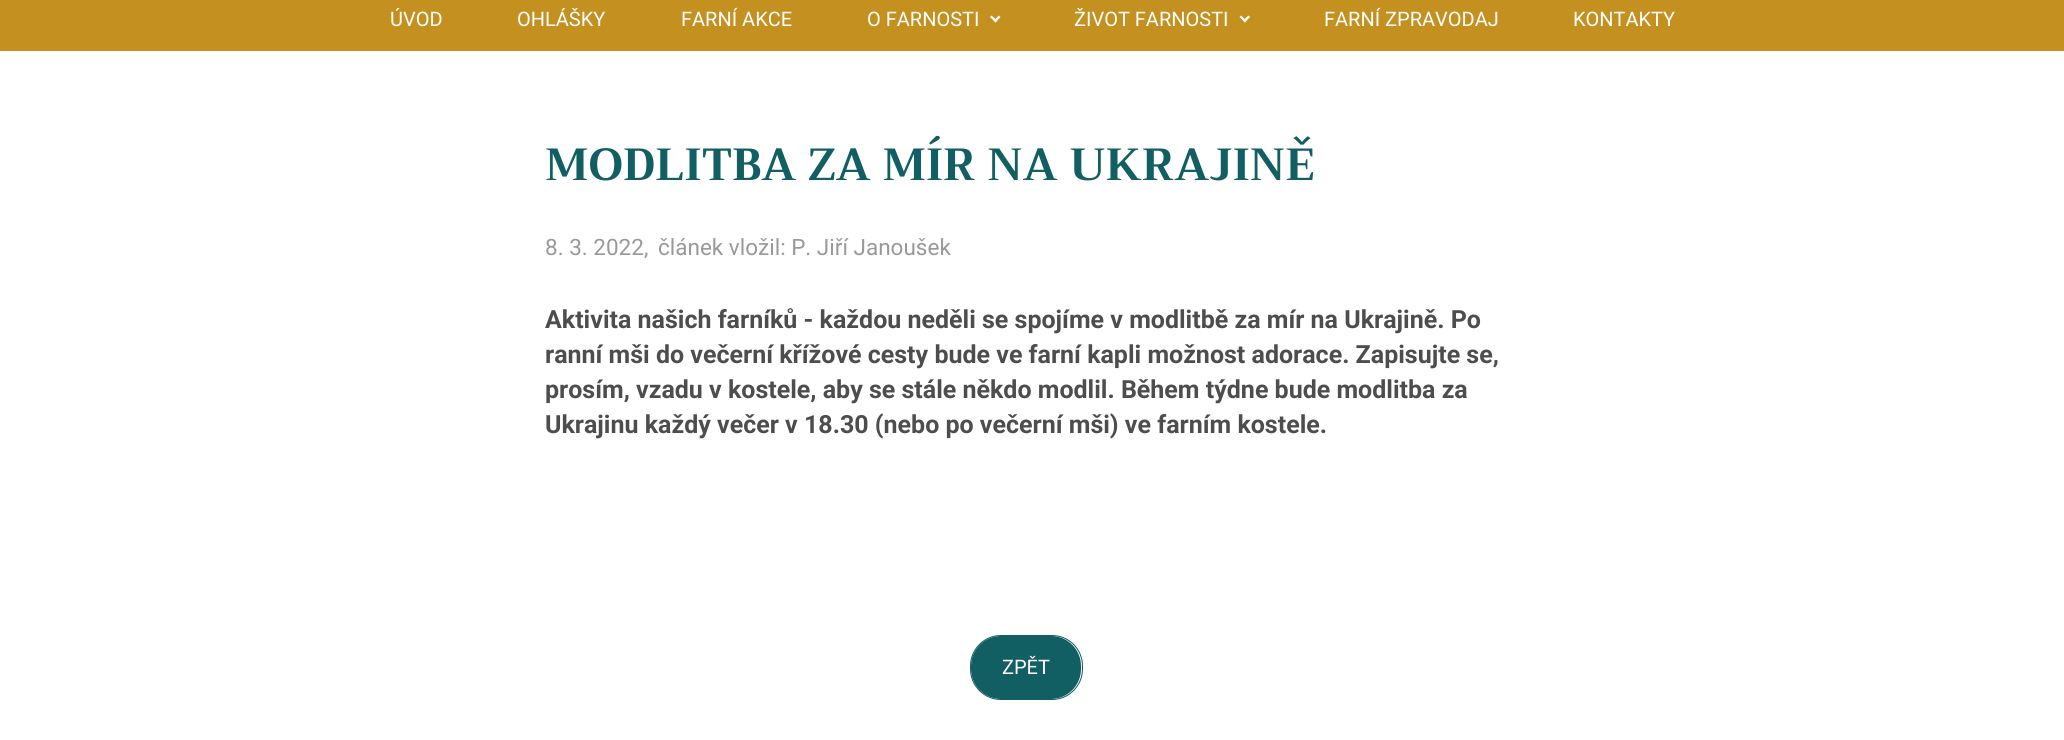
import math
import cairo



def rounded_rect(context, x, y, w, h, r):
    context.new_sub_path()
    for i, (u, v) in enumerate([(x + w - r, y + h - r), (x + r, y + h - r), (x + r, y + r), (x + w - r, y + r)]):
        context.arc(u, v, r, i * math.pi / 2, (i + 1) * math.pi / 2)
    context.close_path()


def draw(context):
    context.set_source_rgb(1, 1, 1)
    context.paint()
    context.set_source_rgb(196 / 255, 144 / 255, 32 / 255)
    context.rectangle(0, 0, 2064, 51)
    context.fill()
    context.set_source_rgb(1, 1, 1)
    context.new_path()
    context.move_to(1000.5, 17)
    context.line_to(995.5, 22.5)
    context.line_to(993.5, 20.5)
    context.line_to(999, 15.5)
    context.close_path()
    context.fill()
    context.new_path()
    context.move_to(997, 20.5)
    context.line_to(995.5, 22.5)
    context.line_to(990, 17)
    context.line_to(991.5, 15.5)
    context.close_path()
    context.fill()
    context.new_path()
    context.move_to(1250, 17)
    context.line_to(1245, 22.5)
    context.line_to(1243, 20.5)
    context.line_to(1248.5, 15.5)
    context.close_path()
    context.fill()
    context.new_path()
    context.move_to(1246.5, 20.5)
    context.line_to(1245, 22.5)
    context.line_to(1239.5, 17)
    context.line_to(1241, 15.5)
    context.close_path()
    context.fill()
    context.set_source_rgb(17 / 255, 94 / 255, 99 / 255)
    rounded_rect(context, 971, 636, 110, 63, 30)
    context.fill()
    rounded_rect(context, 970.5, 635.5, 112, 64, 30.5)
    context.set_line_width(1)
    context.stroke()
    context.select_font_face("Roboto")
    context.set_font_size(20)
    context.set_source_rgb(1, 1, 1)
    context.move_to(390, 26)
    context.show_text("ÚVOD")
    context.move_to(517, 26)
    context.show_text("OHLÁŠKY")
    context.move_to(681, 26)
    context.show_text("FARNÍ AKCE")
    context.move_to(867, 26)
    context.show_text("O FARNOSTI")
    context.move_to(1074, 26)
    context.show_text("ŽIVOT FARNOSTI")
    context.move_to(1324, 26)
    context.show_text("FARNÍ ZPRAVODAJ")
    context.move_to(1573, 26)
    context.show_text("KONTAKTY")
    context.select_font_face("Trirong", cairo.FontSlant.NORMAL, cairo.FontWeight.BOLD)
    context.set_font_size(45)
    context.set_source_rgb(17 / 255, 94 / 255, 99 / 255)
    context.move_to(545, 180)
    context.show_text("MODLITBA ZA MÍR NA UKRAJINĚ")
    context.select_font_face("Roboto")
    context.set_font_size(22.5)
    context.set_source_rgb(153 / 255, 153 / 255, 153 / 255)
    context.move_to(545, 255)
    context.show_text("8. 3. 2022,")
    context.move_to(658, 255)
    context.show_text("článek vložil: P. Jiří Janoušek")
    context.select_font_face("Roboto", cairo.FontSlant.NORMAL, cairo.FontWeight.BOLD)
    context.set_font_size(25)
    context.set_source_rgb(77 / 255, 77 / 255, 77 / 255)
    context.move_to(545, 328)
    context.show_text("Aktivita našich farníků - každou neděli se spojíme v modlitbě za mír na Ukrajině. Po")
    context.move_to(545, 363)
    context.show_text("ranní mši do večerní křížové cesty bude ve farní kapli možnost adorace. Zapisujte se,")
    context.move_to(545, 398)
    context.show_text("prosím, vzadu v kostele, aby se stále někdo modlil. Během týdne bude modlitba za")
    context.move_to(545, 433)
    context.show_text("Ukrajinu každý večer v 18.30 (nebo po večerní mši) ve farním kostele.")
    context.select_font_face("Roboto")
    context.set_font_size(20)
    context.set_source_rgb(1, 1, 1)
    context.move_to(1002, 674)
    context.show_text("ZPĚT")


surface = cairo.ImageSurface(cairo.Format.RGB24, 2064, 740)
context = cairo.Context(surface)
options = cairo.FontOptions()
options.set_hint_metrics(cairo.HintMetrics.OFF)
options.set_hint_style(cairo.HintStyle.NONE)
context.set_font_options(options)
context.set_miter_limit(4)
draw(context)
surface.write_to_png("out.png")
